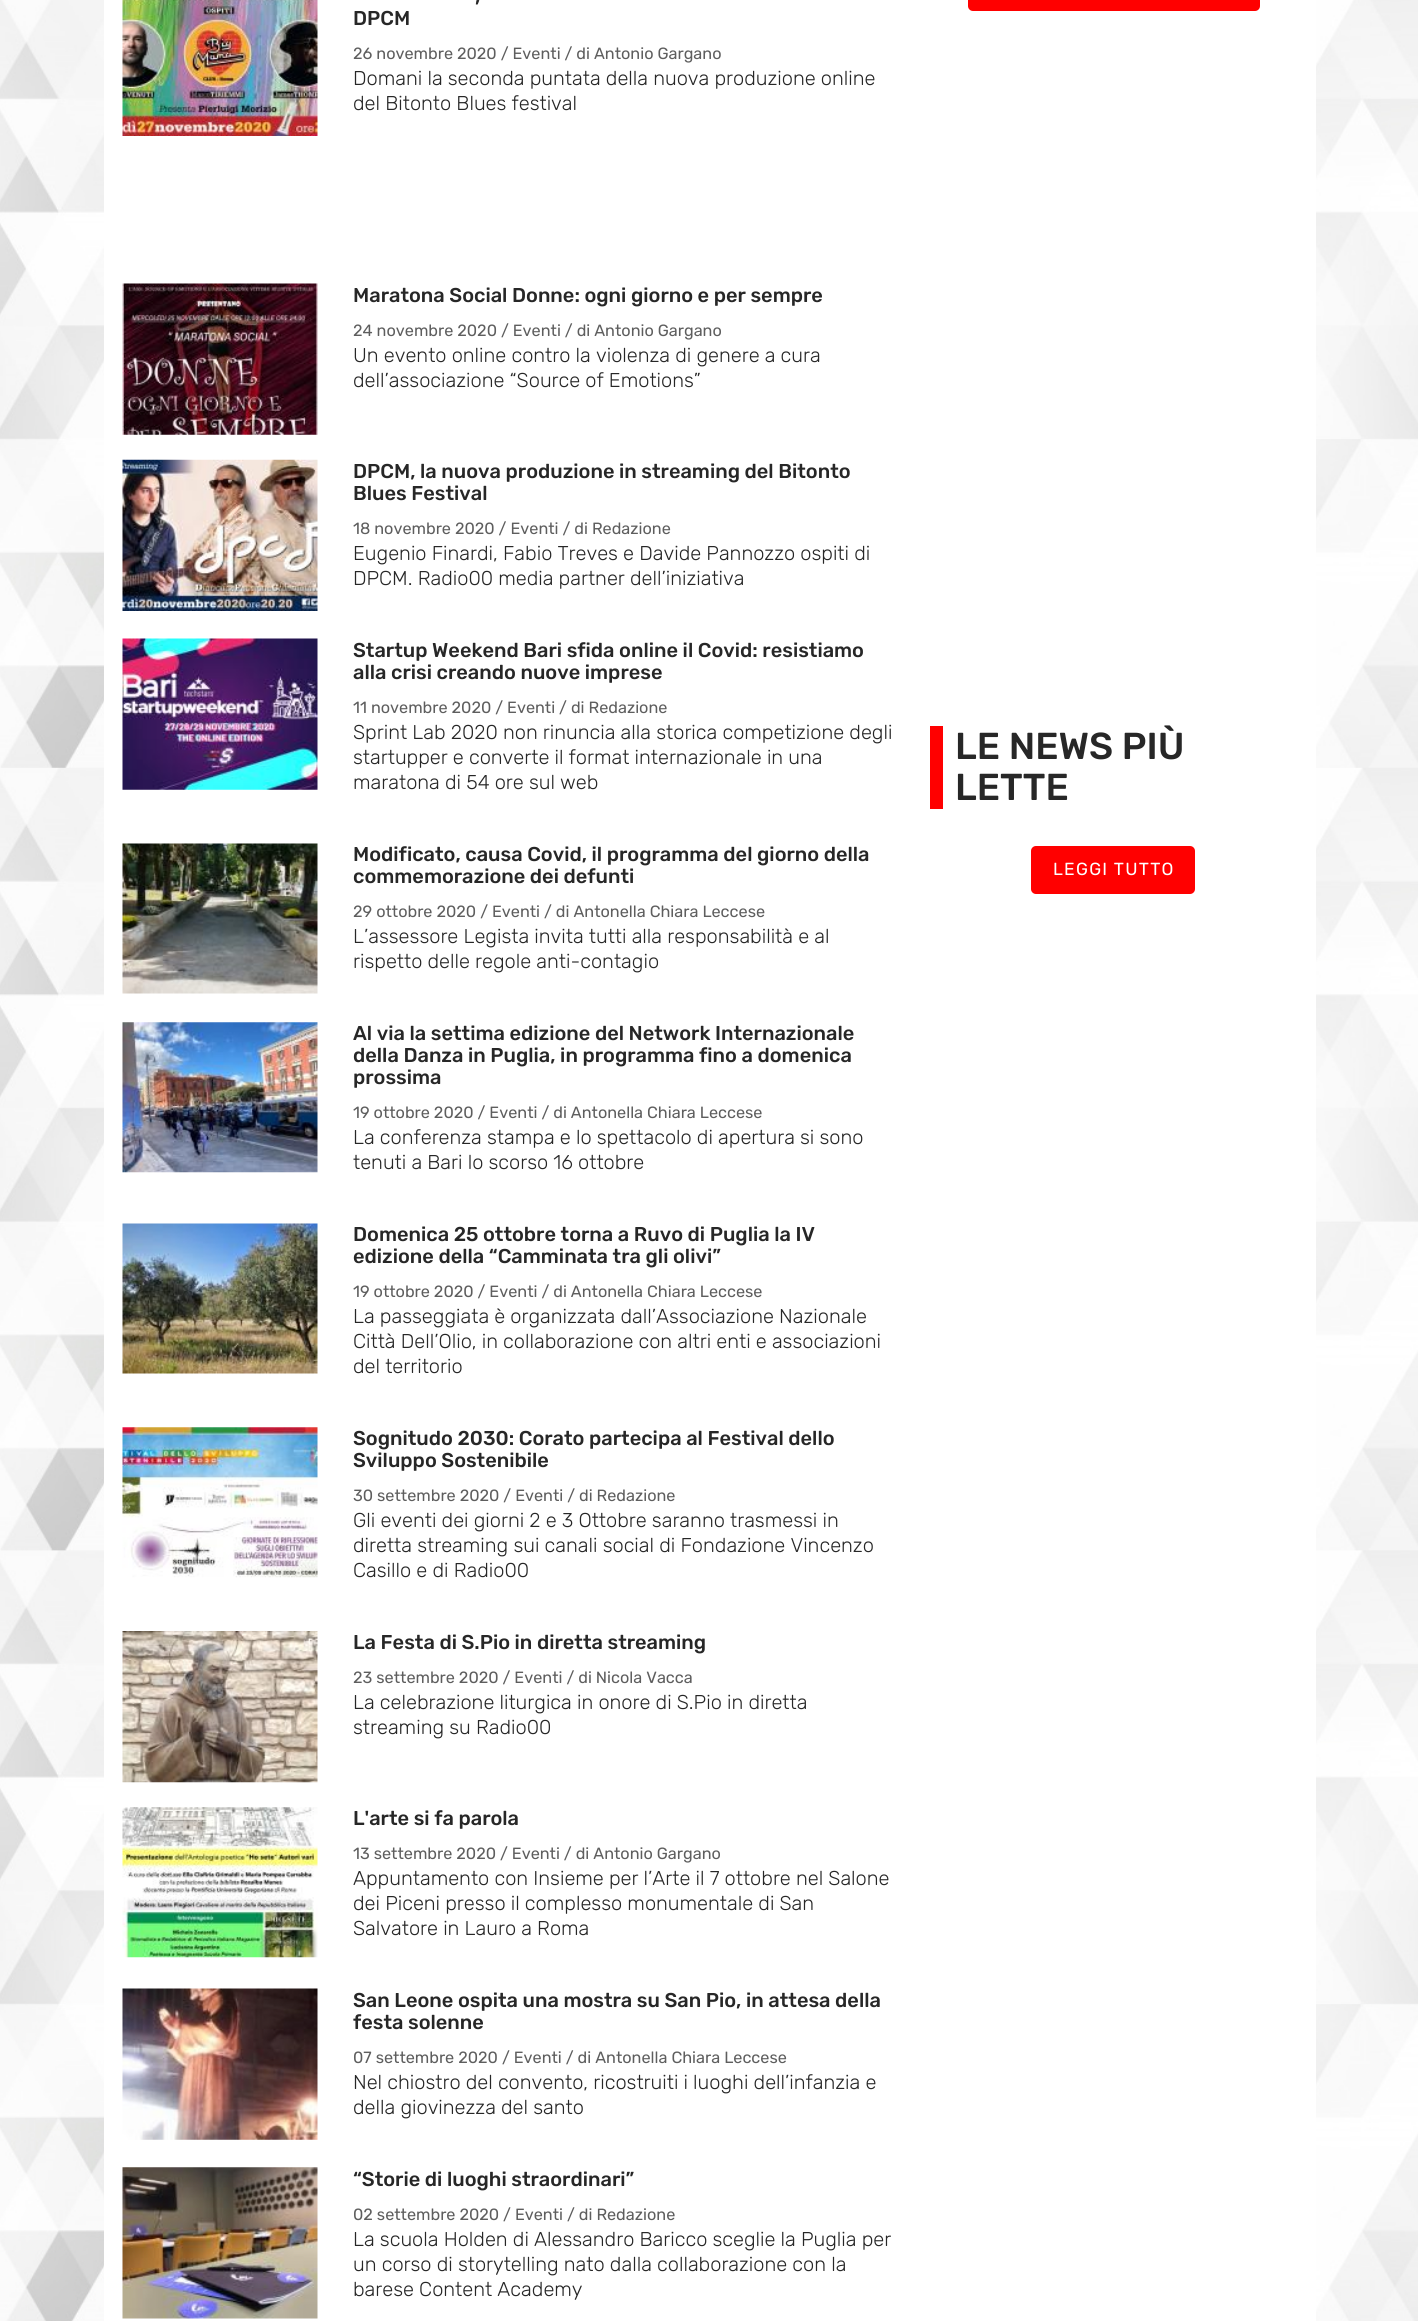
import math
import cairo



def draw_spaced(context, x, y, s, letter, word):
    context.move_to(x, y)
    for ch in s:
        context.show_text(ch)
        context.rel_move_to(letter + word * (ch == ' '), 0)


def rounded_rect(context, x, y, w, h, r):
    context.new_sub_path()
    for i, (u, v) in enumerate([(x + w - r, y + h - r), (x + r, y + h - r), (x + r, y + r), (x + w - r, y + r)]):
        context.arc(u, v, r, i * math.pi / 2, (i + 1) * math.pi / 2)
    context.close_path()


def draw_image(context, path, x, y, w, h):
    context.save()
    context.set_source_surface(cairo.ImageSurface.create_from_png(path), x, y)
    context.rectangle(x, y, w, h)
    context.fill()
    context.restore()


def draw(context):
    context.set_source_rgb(1, 1, 1)
    context.paint()
    draw_image(context, "images/1.png", 0, 0, 1418, 2321)
    context.set_source_rgb(1, 1, 1)
    context.rectangle(104, 0, 1212, 2321)
    context.fill()
    draw_image(context, "images/2.png", 122, 0, 196, 136)
    draw_image(context, "images/3.png", 122, 283, 196, 152)
    draw_image(context, "images/4.png", 122, 459, 196, 152)
    draw_image(context, "images/5.png", 122, 638, 196, 152)
    draw_image(context, "images/6.png", 122, 843, 196, 151)
    draw_image(context, "images/7.png", 122, 1022, 196, 151)
    draw_image(context, "images/8.png", 122, 1223, 196, 151)
    draw_image(context, "images/9.png", 122, 1427, 196, 151)
    draw_image(context, "images/10.png", 122, 1631, 196, 152)
    draw_image(context, "images/11.png", 122, 1807, 196, 151)
    draw_image(context, "images/12.png", 122, 1988, 196, 152)
    draw_image(context, "images/13.png", 122, 2167, 196, 152)
    context.set_source_rgb(1, 0, 0)
    rounded_rect(context, 968, -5, 292, 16, 5)
    context.fill()
    context.rectangle(930, 726, 13, 83)
    context.fill()
    rounded_rect(context, 1031, 846, 164, 48, 5)
    context.fill()
    context.select_font_face("Rubik Medium")
    context.set_font_size(20)
    context.set_source_rgb(39 / 255, 39 / 255, 39 / 255)
    context.move_to(475, 3)
    context.show_text(",")
    context.move_to(353, 25)
    context.show_text("DPCM")
    context.select_font_face("Rubik")
    context.set_font_size(16.25)
    context.set_source_rgb(94 / 255, 94 / 255, 94 / 255)
    context.move_to(353, 59)
    context.show_text("26 novembre 2020 / Eventi / di Antonio Gargano")
    context.select_font_face("Rubik Light")
    context.set_font_size(20)
    context.set_source_rgb(39 / 255, 39 / 255, 39 / 255)
    context.move_to(353, 85)
    context.show_text("Domani la seconda puntata della nuova produzione online")
    context.move_to(353, 110)
    context.show_text("del Bitonto Blues festival")
    context.select_font_face("Rubik Medium")
    context.move_to(353, 302)
    context.show_text("Maratona Social Donne: ogni giorno e per sempre")
    context.select_font_face("Rubik")
    context.set_font_size(16.25)
    context.set_source_rgb(94 / 255, 94 / 255, 94 / 255)
    context.move_to(353, 336)
    context.show_text("24 novembre 2020 / Eventi / di Antonio Gargano")
    context.select_font_face("Rubik Light")
    context.set_font_size(20)
    context.set_source_rgb(39 / 255, 39 / 255, 39 / 255)
    context.move_to(353, 362)
    context.show_text("Un evento online contro la violenza di genere a cura")
    context.move_to(353, 387)
    context.show_text("dell’associazione “Source of Emotions”")
    context.select_font_face("Rubik Medium")
    context.move_to(353, 478)
    context.show_text("DPCM, la nuova produzione in streaming del Bitonto")
    context.move_to(353, 500)
    context.show_text("Blues Festival")
    context.select_font_face("Rubik")
    context.set_font_size(16.25)
    context.set_source_rgb(94 / 255, 94 / 255, 94 / 255)
    context.move_to(353, 534)
    context.show_text("18 novembre 2020 / Eventi / di Redazione")
    context.select_font_face("Rubik Light")
    context.set_font_size(20)
    context.set_source_rgb(39 / 255, 39 / 255, 39 / 255)
    context.move_to(353, 560)
    context.show_text("Eugenio Finardi, Fabio Treves e Davide Pannozzo ospiti di")
    context.move_to(353, 585)
    context.show_text("DPCM. Radio00 media partner dell’iniziativa")
    context.select_font_face("Rubik Medium")
    context.move_to(353, 657)
    context.show_text("Startup Weekend Bari sfida online il Covid: resistiamo")
    context.move_to(353, 679)
    context.show_text("alla crisi creando nuove imprese")
    context.select_font_face("Rubik")
    context.set_font_size(16.25)
    context.set_source_rgb(94 / 255, 94 / 255, 94 / 255)
    context.move_to(353, 713)
    context.show_text("11 novembre 2020 / Eventi / di Redazione")
    context.select_font_face("Rubik Light")
    context.set_font_size(20)
    context.set_source_rgb(39 / 255, 39 / 255, 39 / 255)
    context.move_to(353, 739)
    context.show_text("Sprint Lab 2020 non rinuncia alla storica competizione degli")
    context.move_to(353, 764)
    context.show_text("startupper e converte il format internazionale in una")
    context.move_to(353, 789)
    context.show_text("maratona di 54 ore sul web")
    context.select_font_face("Rubik Medium")
    context.move_to(353, 861)
    context.show_text("Modificato, causa Covid, il programma del giorno della")
    context.move_to(353, 883)
    context.show_text("commemorazione dei defunti")
    context.select_font_face("Rubik")
    context.set_font_size(16.25)
    context.set_source_rgb(94 / 255, 94 / 255, 94 / 255)
    context.move_to(353, 917)
    context.show_text("29 ottobre 2020 / Eventi / di Antonella Chiara Leccese")
    context.select_font_face("Rubik Light")
    context.set_font_size(20)
    context.set_source_rgb(39 / 255, 39 / 255, 39 / 255)
    context.move_to(353, 943)
    context.show_text("L’assessore Legista invita tutti alla responsabilità e al")
    context.move_to(353, 968)
    context.show_text("rispetto delle regole anti-contagio")
    context.select_font_face("Rubik Medium")
    context.move_to(353, 1040)
    context.show_text("Al via la settima edizione del Network Internazionale")
    context.move_to(353, 1062)
    context.show_text("della Danza in Puglia, in programma fino a domenica")
    context.move_to(353, 1084)
    context.show_text("prossima")
    context.select_font_face("Rubik")
    context.set_font_size(16.25)
    context.set_source_rgb(94 / 255, 94 / 255, 94 / 255)
    context.move_to(353, 1118)
    context.show_text("19 ottobre 2020 / Eventi / di Antonella Chiara Leccese")
    context.select_font_face("Rubik Light")
    context.set_font_size(20)
    context.set_source_rgb(39 / 255, 39 / 255, 39 / 255)
    context.move_to(353, 1144)
    context.show_text("La conferenza stampa e lo spettacolo di apertura si sono")
    context.move_to(353, 1169)
    context.show_text("tenuti a Bari lo scorso 16 ottobre")
    context.select_font_face("Rubik Medium")
    context.move_to(353, 1241)
    context.show_text("Domenica 25 ottobre torna a Ruvo di Puglia la IV")
    context.move_to(353, 1263)
    context.show_text("edizione della “Camminata tra gli olivi”")
    context.select_font_face("Rubik")
    context.set_font_size(16.25)
    context.set_source_rgb(94 / 255, 94 / 255, 94 / 255)
    context.move_to(353, 1297)
    context.show_text("19 ottobre 2020 / Eventi / di Antonella Chiara Leccese")
    context.select_font_face("Rubik Light")
    context.set_font_size(20)
    context.set_source_rgb(39 / 255, 39 / 255, 39 / 255)
    context.move_to(353, 1323)
    context.show_text("La passeggiata è organizzata dall’Associazione Nazionale")
    context.move_to(353, 1348)
    context.show_text("Città Dell’Olio, in collaborazione con altri enti e associazioni")
    context.move_to(353, 1373)
    context.show_text("del territorio")
    context.select_font_face("Rubik Medium")
    context.move_to(353, 1445)
    context.show_text("Sognitudo 2030: Corato partecipa al Festival dello")
    context.move_to(353, 1467)
    context.show_text("Sviluppo Sostenibile")
    context.select_font_face("Rubik")
    context.set_font_size(16.25)
    context.set_source_rgb(94 / 255, 94 / 255, 94 / 255)
    context.move_to(353, 1501)
    context.show_text("30 settembre 2020 / Eventi / di Redazione")
    context.select_font_face("Rubik Light")
    context.set_font_size(20)
    context.set_source_rgb(39 / 255, 39 / 255, 39 / 255)
    context.move_to(353, 1527)
    context.show_text("Gli eventi dei giorni 2 e 3 Ottobre saranno trasmessi in")
    context.move_to(353, 1552)
    context.show_text("diretta streaming sui canali social di Fondazione Vincenzo")
    context.move_to(353, 1577)
    context.show_text("Casillo e di Radio00")
    context.select_font_face("Rubik Medium")
    context.move_to(353, 1649)
    context.show_text("La Festa di S.Pio in diretta streaming")
    context.select_font_face("Rubik")
    context.set_font_size(16.25)
    context.set_source_rgb(94 / 255, 94 / 255, 94 / 255)
    context.move_to(353, 1683)
    context.show_text("23 settembre 2020 / Eventi / di Nicola Vacca")
    context.select_font_face("Rubik Light")
    context.set_font_size(20)
    context.set_source_rgb(39 / 255, 39 / 255, 39 / 255)
    context.move_to(353, 1709)
    context.show_text("La celebrazione liturgica in onore di S.Pio in diretta")
    context.move_to(353, 1734)
    context.show_text("streaming su Radio00")
    context.select_font_face("Rubik Medium")
    context.move_to(353, 1825)
    context.show_text("L'arte si fa parola")
    context.select_font_face("Rubik")
    context.set_font_size(16.25)
    context.set_source_rgb(94 / 255, 94 / 255, 94 / 255)
    context.move_to(353, 1859)
    context.show_text("13 settembre 2020 / Eventi / di Antonio Gargano")
    context.select_font_face("Rubik Light")
    context.set_font_size(20)
    context.set_source_rgb(39 / 255, 39 / 255, 39 / 255)
    context.move_to(353, 1885)
    context.show_text("Appuntamento con Insieme per l’Arte il 7 ottobre nel Salone")
    context.move_to(353, 1910)
    context.show_text("dei Piceni presso il complesso monumentale di San")
    context.move_to(353, 1935)
    context.show_text("Salvatore in Lauro a Roma")
    context.select_font_face("Rubik Medium")
    context.move_to(353, 2007)
    context.show_text("San Leone ospita una mostra su San Pio, in attesa della")
    context.move_to(353, 2029)
    context.show_text("festa solenne")
    context.select_font_face("Rubik")
    context.set_font_size(16.25)
    context.set_source_rgb(94 / 255, 94 / 255, 94 / 255)
    context.move_to(353, 2063)
    context.show_text("07 settembre 2020 / Eventi / di Antonella Chiara Leccese")
    context.select_font_face("Rubik Light")
    context.set_font_size(20)
    context.set_source_rgb(39 / 255, 39 / 255, 39 / 255)
    context.move_to(353, 2089)
    context.show_text("Nel chiostro del convento, ricostruiti i luoghi dell’infanzia e")
    context.move_to(353, 2114)
    context.show_text("della giovinezza del santo")
    context.select_font_face("Rubik Medium")
    context.move_to(353, 2186)
    context.show_text("“Storie di luoghi straordinari”")
    context.select_font_face("Rubik")
    context.set_font_size(16.25)
    context.set_source_rgb(94 / 255, 94 / 255, 94 / 255)
    context.move_to(353, 2220)
    context.show_text("02 settembre 2020 / Eventi / di Redazione")
    context.select_font_face("Rubik Light")
    context.set_font_size(20)
    context.set_source_rgb(39 / 255, 39 / 255, 39 / 255)
    context.move_to(353, 2246)
    context.show_text("La scuola Holden di Alessandro Baricco sceglie la Puglia per")
    context.move_to(353, 2271)
    context.show_text("un corso di storytelling nato dalla collaborazione con la")
    context.move_to(353, 2296)
    context.show_text("barese Content Academy")
    context.select_font_face("Rubik Medium")
    context.set_font_size(37.5)
    context.move_to(955, 759)
    context.show_text("LE NEWS PIÙ")
    context.move_to(955, 800)
    context.show_text("LETTE")
    context.select_font_face("Rubik")
    context.set_font_size(17.5)
    context.set_source_rgb(1, 1, 1)
    draw_spaced(context, 1053, 875, "LEGGI TUTTO", 1.25, 0)


surface = cairo.ImageSurface(cairo.Format.RGB24, 1418, 2321)
context = cairo.Context(surface)
options = cairo.FontOptions()
options.set_hint_metrics(cairo.HintMetrics.OFF)
options.set_hint_style(cairo.HintStyle.NONE)
context.set_font_options(options)
context.set_miter_limit(4)
draw(context)
surface.write_to_png("out.png")
